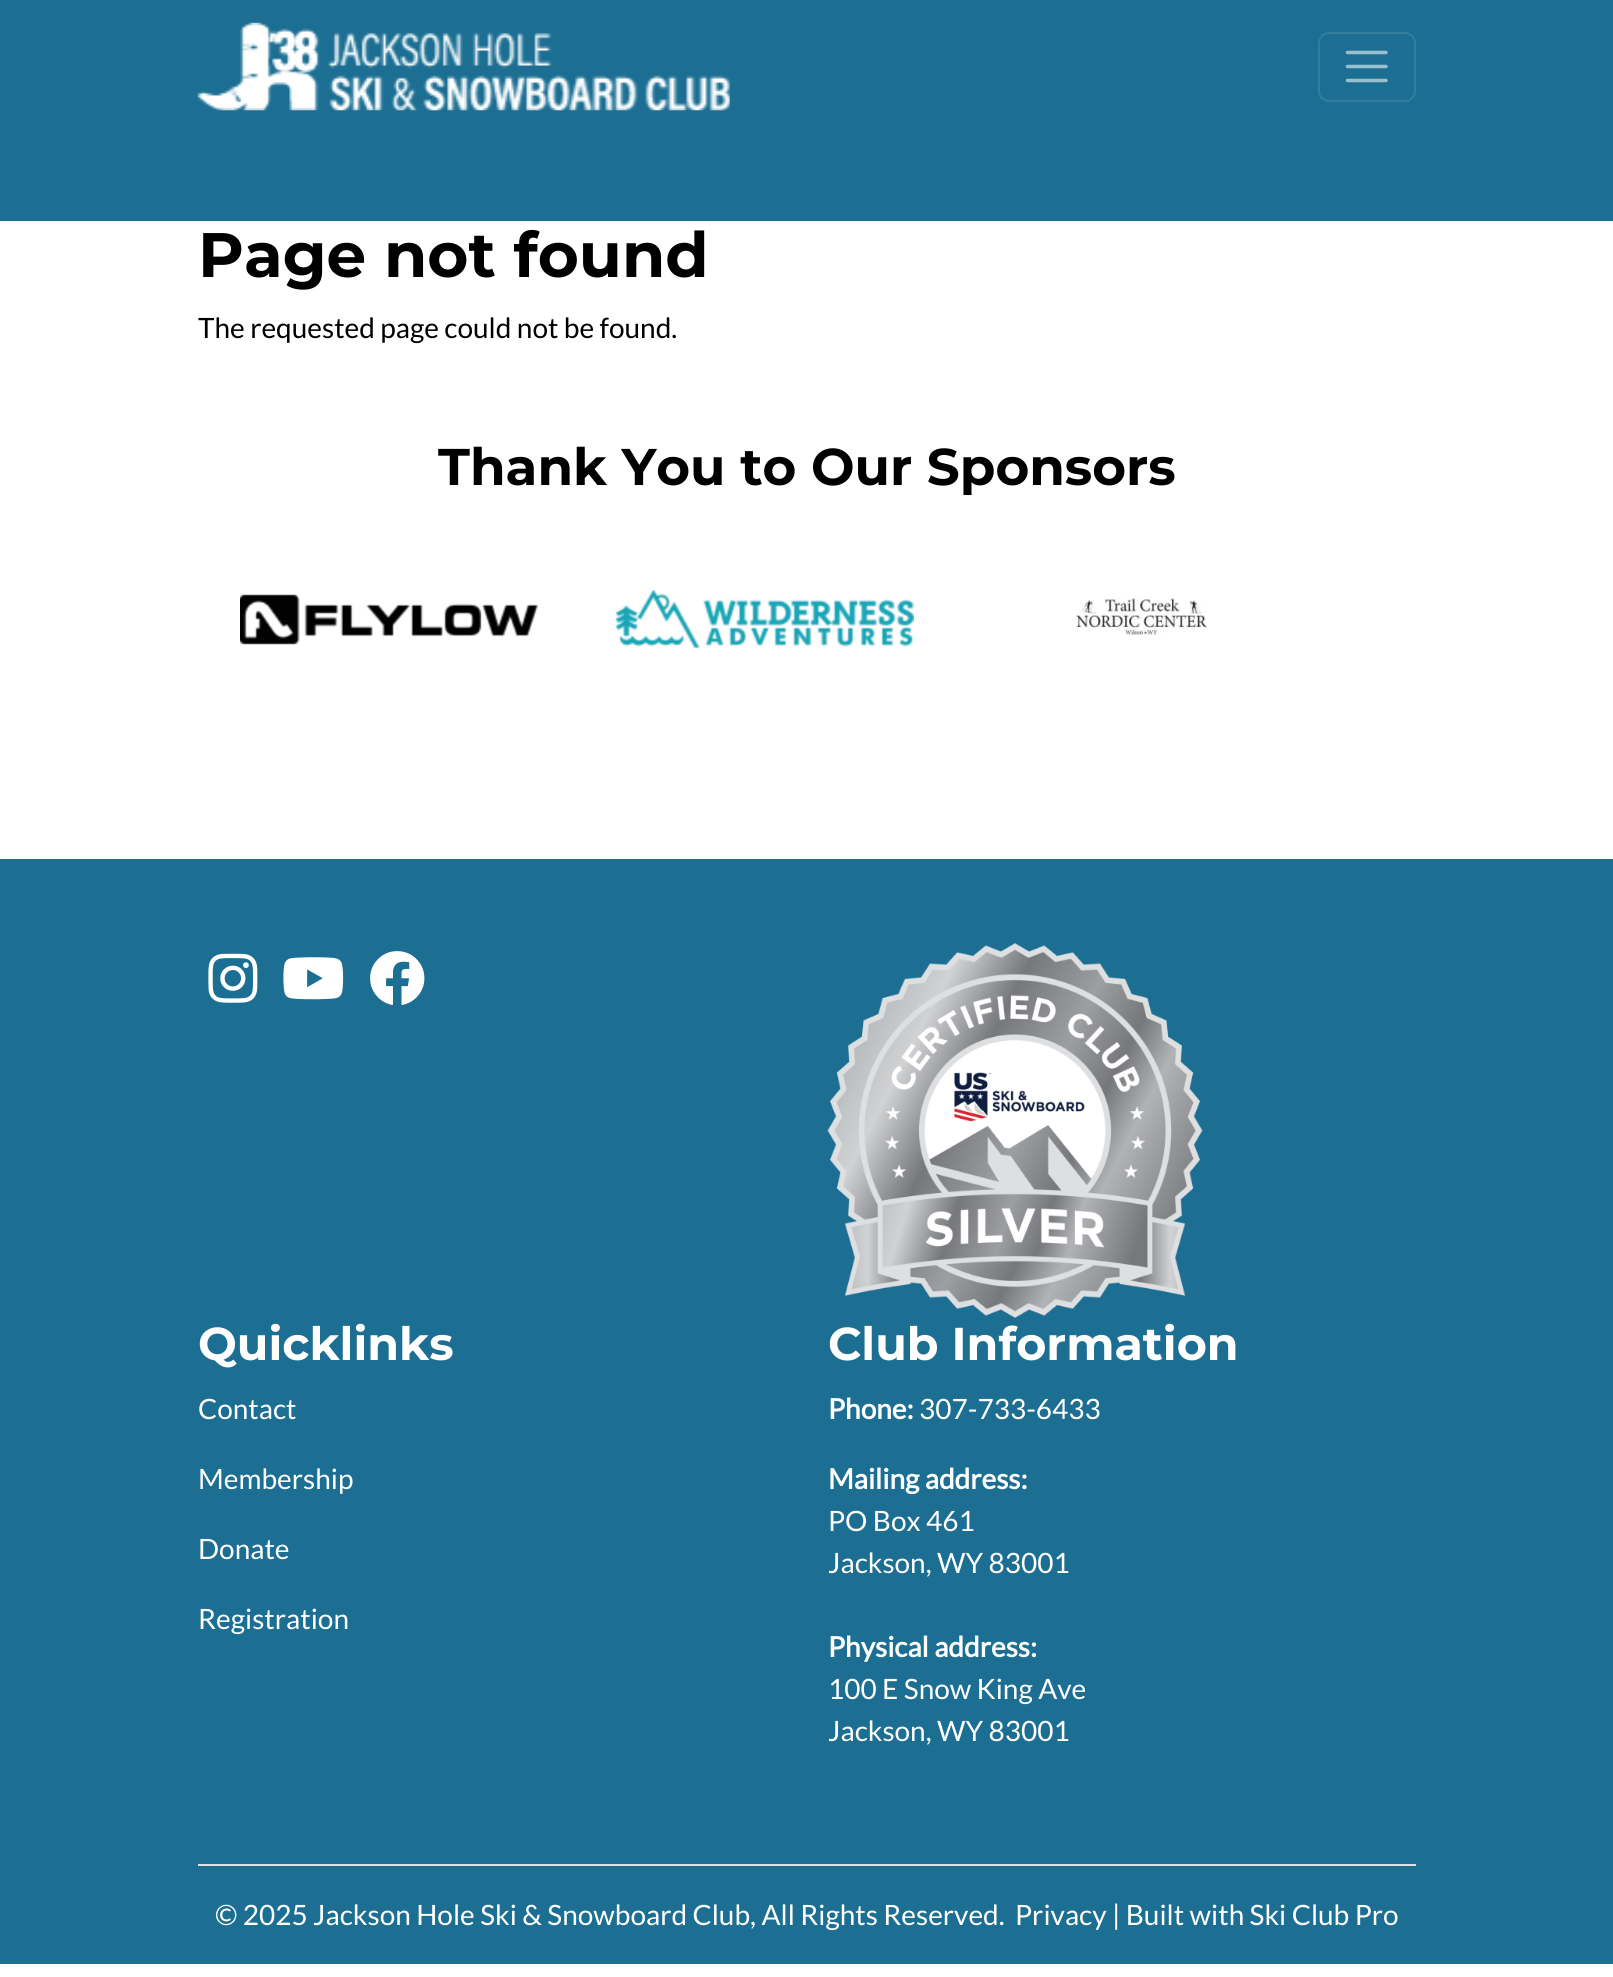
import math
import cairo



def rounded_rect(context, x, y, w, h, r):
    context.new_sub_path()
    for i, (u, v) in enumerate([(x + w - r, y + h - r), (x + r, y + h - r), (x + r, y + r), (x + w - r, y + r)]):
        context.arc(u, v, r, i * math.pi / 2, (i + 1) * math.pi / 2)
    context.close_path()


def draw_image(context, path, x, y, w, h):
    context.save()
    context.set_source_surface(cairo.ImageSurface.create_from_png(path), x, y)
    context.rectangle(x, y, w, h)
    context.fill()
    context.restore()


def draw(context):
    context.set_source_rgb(1, 1, 1)
    context.paint()
    context.set_source_rgb(28 / 255, 111 / 255, 147 / 255)
    context.rectangle(0, 0, 1613, 221)
    context.fill()
    draw_image(context, "images/1.png", 197, 22, 533, 89)
    rounded_rect(context, 1319, 33, 96, 68, 10)
    context.set_source_rgb(51 / 255, 125 / 255, 158 / 255)
    context.stroke()
    context.new_path()
    context.move_to(1347.5, 52.5)
    context.line_to(1386, 52.5)
    context.move_to(1347.5, 66.5)
    context.line_to(1386, 66.5)
    context.move_to(1347.5, 80.5)
    context.line_to(1386, 80.5)
    context.set_source_rgb(153 / 255, 190 / 255, 206 / 255)
    context.set_line_width(3.5)
    context.set_line_cap(cairo.LineCap.ROUND)
    context.stroke()
    draw_image(context, "images/2.png", 240, 594, 298, 51)
    draw_image(context, "images/3.png", 615, 590, 299, 58)
    draw_image(context, "images/4.png", 1076, 597, 131, 38)
    context.set_source_rgb(28 / 255, 111 / 255, 147 / 255)
    context.rectangle(0, 859, 1613, 1105)
    context.fill()
    draw_image(context, "images/5.png", 208, 953, 50, 50)
    draw_image(context, "images/6.png", 283, 957, 61, 43)
    draw_image(context, "images/7.png", 370, 951, 55, 54)
    draw_image(context, "images/8.png", 827, 943, 376, 375)
    context.set_source_rgb(222 / 255, 226 / 255, 230 / 255)
    context.rectangle(198, 1864, 1218, 2)
    context.fill()
    context.select_font_face("Montserrat", cairo.FontSlant.NORMAL, cairo.FontWeight.BOLD)
    context.set_font_size(62.75)
    context.set_source_rgb(0, 0, 0)
    context.move_to(198, 277)
    context.show_text("Page not found")
    context.select_font_face("Lato")
    context.set_font_size(28)
    context.move_to(198, 338)
    context.show_text("The requested page could not be found.")
    context.select_font_face("Montserrat", cairo.FontSlant.NORMAL, cairo.FontWeight.BOLD)
    context.set_font_size(51.6)
    context.move_to(438, 485)
    context.show_text("Thank You to Our Sponsors")
    context.set_font_size(46)
    context.set_source_rgb(1, 1, 1)
    context.move_to(198, 1360)
    context.show_text("Quicklinks")
    context.select_font_face("Lato")
    context.set_font_size(28)
    context.move_to(198, 1419)
    context.show_text("Contact")
    context.move_to(198, 1489)
    context.show_text("Membership")
    context.move_to(198, 1559)
    context.show_text("Donate")
    context.move_to(198, 1629)
    context.show_text("Registration")
    context.select_font_face("Montserrat", cairo.FontSlant.NORMAL, cairo.FontWeight.BOLD)
    context.set_font_size(46)
    context.move_to(828, 1360)
    context.show_text("Club Information")
    context.select_font_face("Lato", cairo.FontSlant.NORMAL, cairo.FontWeight.BOLD)
    context.set_font_size(28)
    context.move_to(828, 1419)
    context.show_text("Phone:")
    context.select_font_face("Lato")
    context.move_to(919, 1419)
    context.show_text("307-733-6433")
    context.select_font_face("Lato", cairo.FontSlant.NORMAL, cairo.FontWeight.BOLD)
    context.move_to(828, 1489)
    context.show_text("Mailing address:")
    context.select_font_face("Lato")
    context.move_to(828, 1531)
    context.show_text("PO Box 461")
    context.move_to(828, 1573)
    context.show_text("Jackson, WY 83001")
    context.select_font_face("Lato", cairo.FontSlant.NORMAL, cairo.FontWeight.BOLD)
    context.move_to(828, 1657)
    context.show_text("Physical address:")
    context.select_font_face("Lato")
    context.move_to(828, 1699)
    context.show_text("100 E Snow King Ave")
    context.move_to(828, 1741)
    context.show_text("Jackson, WY 83001")
    context.move_to(215, 1925)
    context.show_text("© 2025 Jackson Hole Ski & Snowboard Club, All Rights Reserved.")
    context.move_to(1015, 1925)
    context.show_text("Privacy | Built with Ski Club Pro")


surface = cairo.ImageSurface(cairo.Format.RGB24, 1613, 1977)
context = cairo.Context(surface)
options = cairo.FontOptions()
options.set_hint_metrics(cairo.HintMetrics.OFF)
options.set_hint_style(cairo.HintStyle.NONE)
context.set_font_options(options)
context.set_miter_limit(4)
draw(context)
surface.write_to_png("out.png")
